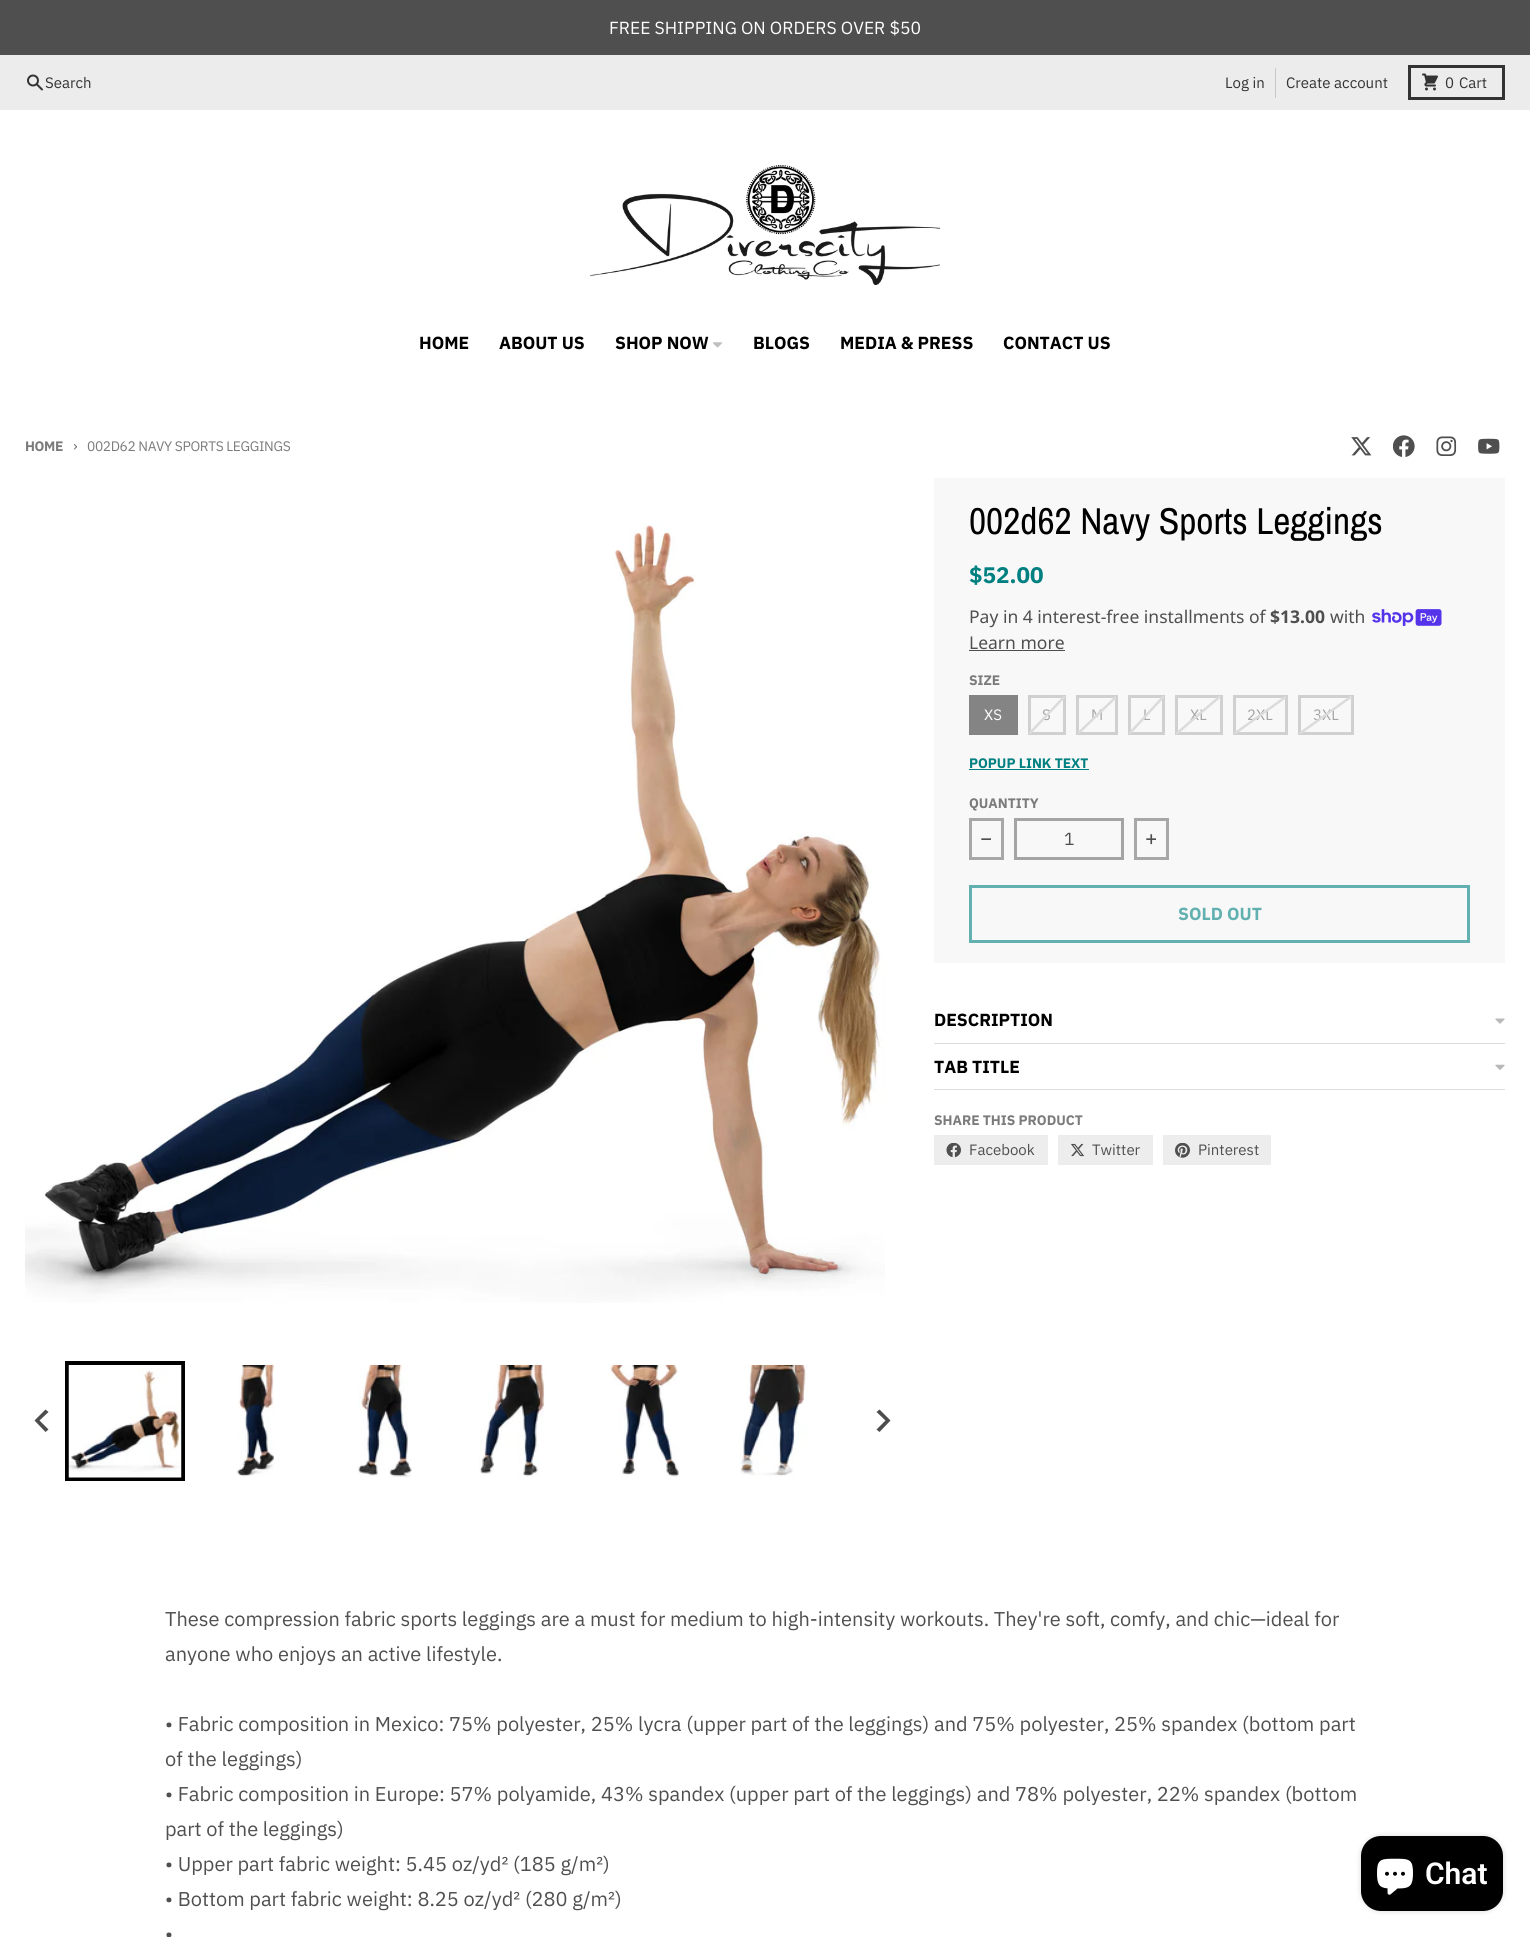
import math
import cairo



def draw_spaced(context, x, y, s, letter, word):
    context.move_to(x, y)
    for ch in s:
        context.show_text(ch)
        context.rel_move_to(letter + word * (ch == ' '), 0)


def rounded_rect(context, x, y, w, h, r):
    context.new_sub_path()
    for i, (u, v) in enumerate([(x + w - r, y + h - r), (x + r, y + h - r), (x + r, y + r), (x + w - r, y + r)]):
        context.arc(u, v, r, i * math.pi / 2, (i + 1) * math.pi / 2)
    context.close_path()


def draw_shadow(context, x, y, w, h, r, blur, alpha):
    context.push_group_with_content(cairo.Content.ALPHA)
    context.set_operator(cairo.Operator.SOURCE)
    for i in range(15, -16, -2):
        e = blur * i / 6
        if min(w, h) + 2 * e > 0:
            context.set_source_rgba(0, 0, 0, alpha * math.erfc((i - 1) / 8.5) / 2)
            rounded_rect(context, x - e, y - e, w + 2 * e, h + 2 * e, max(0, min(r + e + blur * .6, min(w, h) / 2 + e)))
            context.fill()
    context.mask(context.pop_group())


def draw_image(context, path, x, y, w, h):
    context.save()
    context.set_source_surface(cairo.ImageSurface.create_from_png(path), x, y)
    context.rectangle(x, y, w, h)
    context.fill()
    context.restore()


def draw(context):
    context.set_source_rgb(1, 1, 1)
    context.paint()
    context.set_source_rgb(79 / 255, 79 / 255, 79 / 255)
    context.rectangle(0, 0, 1530, 55)
    context.fill()
    context.set_source_rgb(236 / 255, 236 / 255, 236 / 255)
    context.rectangle(0, 55, 1530, 55)
    context.fill()
    draw_image(context, "images/1.png", 27, 74, 16, 17)
    context.set_source_rgb(199 / 255, 199 / 255, 199 / 255)
    context.rectangle(1275, 68, 1, 30)
    context.fill()
    context.rectangle(1409.5, 66.5, 94, 32)
    context.set_source_rgb(51 / 255, 51 / 255, 51 / 255)
    context.set_line_width(3)
    context.stroke()
    draw_image(context, "images/2.png", 1422, 73, 16, 18)
    draw_image(context, "images/3.png", 590, 165, 350, 120)
    draw_image(context, "images/4.png", 713, 342, 9, 6)
    draw_image(context, "images/5.png", 1351, 437, 21, 19)
    draw_image(context, "images/6.png", 1393, 435, 22, 22)
    draw_image(context, "images/7.png", 1436, 436, 21, 20)
    draw_image(context, "images/8.png", 1478, 438, 22, 16)
    draw_image(context, "images/9.png", 25, 523, 860, 780)
    context.rectangle(67, 1363, 116, 116)
    context.set_source_rgb(0, 0, 0)
    context.set_line_width(4)
    context.stroke()
    draw_image(context, "images/10.png", 68, 1365, 114, 113)
    draw_image(context, "images/11.png", 237, 1365, 37, 112)
    draw_image(context, "images/12.png", 358, 1365, 54, 113)
    draw_image(context, "images/13.png", 479, 1365, 66, 112)
    draw_image(context, "images/14.png", 609, 1365, 70, 112)
    draw_image(context, "images/15.png", 739, 1365, 69, 111)
    context.set_source_rgb(77 / 255, 77 / 255, 77 / 255)
    context.new_path()
    context.move_to(45.5, 1409.5)
    context.line_to(48.5, 1412)
    context.line_to(39.5, 1420.5)
    context.line_to(48.5, 1429.5)
    context.line_to(45.5, 1432)
    context.line_to(34.5, 1420.5)
    context.close_path()
    context.fill()
    context.new_path()
    context.move_to(879.5, 1409.5)
    context.line_to(876.5, 1412)
    context.line_to(885.5, 1420.5)
    context.line_to(876.5, 1429.5)
    context.line_to(879.5, 1432)
    context.line_to(890.5, 1420.5)
    context.close_path()
    context.fill()
    context.set_source_rgb(248 / 255, 248 / 255, 248 / 255)
    context.rectangle(934, 478, 571, 485)
    context.fill()
    draw_image(context, "images/16.png", 1372, 609, 70, 17)
    context.set_source_rgb(79 / 255, 79 / 255, 79 / 255)
    context.rectangle(969, 650, 96, 1)
    context.fill()
    context.set_source_rgb(132 / 255, 132 / 255, 132 / 255)
    context.rectangle(969, 695, 49, 40)
    context.fill()
    context.rectangle(1029.5, 696.5, 35, 37)
    context.set_source_rgb(208 / 255, 208 / 255, 208 / 255)
    context.set_line_width(3)
    context.stroke()
    context.rectangle(1077.5, 696.5, 39, 37)
    context.stroke()
    context.rectangle(1129.5, 696.5, 34, 37)
    context.stroke()
    context.rectangle(1176.5, 696.5, 45, 37)
    context.stroke()
    context.rectangle(1234.5, 696.5, 52, 37)
    context.stroke()
    context.rectangle(1299.5, 696.5, 53, 37)
    context.stroke()
    context.set_source_rgb(0, 128 / 255, 128 / 255)
    context.rectangle(969, 769, 120, 1)
    context.fill()
    context.rectangle(970.5, 819.5, 32, 39)
    context.set_source_rgb(167 / 255, 167 / 255, 167 / 255)
    context.stroke()
    draw_image(context, "images/17.png", 981, 838, 10, 2)
    context.rectangle(1015.5, 819.5, 107, 39)
    context.set_source_rgb(164 / 255, 164 / 255, 164 / 255)
    context.stroke()
    context.rectangle(1135.5, 819.5, 32, 39)
    context.set_source_rgb(167 / 255, 167 / 255, 167 / 255)
    context.stroke()
    draw_image(context, "images/18.png", 1146, 834, 10, 11)
    context.rectangle(970.5, 886.5, 498, 55)
    context.set_source_rgb(99 / 255, 176 / 255, 176 / 255)
    context.stroke()
    context.set_source_rgb(220 / 255, 220 / 255, 220 / 255)
    context.rectangle(934, 1043, 571, 1)
    context.fill()
    draw_image(context, "images/19.png", 1495, 1018, 10, 6)
    context.rectangle(934, 1089, 571, 1)
    context.fill()
    draw_image(context, "images/20.png", 1495, 1064, 10, 6)
    context.set_source_rgb(237 / 255, 237 / 255, 237 / 255)
    context.rectangle(934, 1135, 114, 30)
    context.fill()
    draw_image(context, "images/21.png", 946, 1143, 15, 15)
    context.rectangle(1058, 1135, 95, 30)
    context.fill()
    draw_image(context, "images/22.png", 1071, 1143, 14, 14)
    context.rectangle(1163, 1135, 108, 30)
    context.fill()
    draw_image(context, "images/23.png", 1175, 1143, 15, 15)
    context.set_source_rgb(0, 0, 0)
    draw_shadow(context, 1361, 1836, 142, 75, 20, 3, 0.15)
    context.set_source_rgb(0, 0, 0)
    rounded_rect(context, 1361, 1836, 142, 75, 20)
    context.fill()
    draw_image(context, "images/24.png", 1377, 1858, 36, 37)
    context.select_font_face("IBM Plex Sans")
    context.set_font_size(17.5)
    context.set_source_rgb(1, 1, 1)
    context.move_to(609, 34)
    context.show_text("FREE SHIPPING ON ORDERS OVER $50")
    context.set_font_size(15)
    context.set_source_rgb(51 / 255, 51 / 255, 51 / 255)
    context.move_to(45, 88)
    context.show_text("Search")
    context.move_to(1225, 88)
    context.show_text("Log in")
    context.move_to(1286, 88)
    context.show_text("Create account")
    context.move_to(1445, 88)
    context.show_text("0")
    context.move_to(1459, 88)
    context.show_text("Cart")
    context.select_font_face("IBM Plex Sans", cairo.FontSlant.NORMAL, cairo.FontWeight.BOLD)
    context.set_font_size(17.5)
    context.set_source_rgb(0, 0, 0)
    context.move_to(419, 349)
    context.show_text("HOME")
    context.move_to(499, 349)
    context.show_text("ABOUT US")
    context.move_to(615, 349)
    context.show_text("SHOP NOW")
    context.move_to(753, 349)
    context.show_text("BLOGS")
    context.move_to(840, 349)
    context.show_text("MEDIA & PRESS")
    context.move_to(1003, 349)
    context.show_text("CONTACT US")
    context.set_font_size(13.75)
    context.set_source_rgb(123 / 255, 123 / 255, 123 / 255)
    draw_spaced(context, 25, 451, "HOME", -0.35, 0)
    context.select_font_face("IBM Plex Sans")
    context.set_font_size(15)
    draw_spaced(context, 73, 451, "›", -0.35, 0)
    context.set_font_size(13.75)
    draw_spaced(context, 87, 451, "002D62 NAVY SPORTS LEGGINGS", -0.35, 0)
    context.select_font_face("Archivo Narrow")
    context.set_font_size(37.5)
    context.set_source_rgb(0, 0, 0)
    context.move_to(969, 534)
    context.show_text("002d62 Navy Sports Leggings")
    context.select_font_face("IBM Plex Sans", cairo.FontSlant.NORMAL, cairo.FontWeight.BOLD)
    context.set_font_size(22.5)
    context.set_source_rgb(0, 128 / 255, 128 / 255)
    context.move_to(969, 583)
    context.show_text("$52.00")
    context.select_font_face("Noto Sans")
    context.set_font_size(17.5)
    context.set_source_rgb(79 / 255, 79 / 255, 79 / 255)
    context.move_to(969, 623)
    context.show_text("Pay in 4 interest-free installments of")
    context.select_font_face("Noto Sans", cairo.FontSlant.NORMAL, cairo.FontWeight.BOLD)
    context.move_to(1270, 623)
    context.show_text("$13.00")
    context.select_font_face("Noto Sans")
    context.move_to(1330, 623)
    context.show_text("with")
    context.move_to(969, 649)
    context.show_text("Learn more")
    context.select_font_face("IBM Plex Sans", cairo.FontSlant.NORMAL, cairo.FontWeight.BOLD)
    context.set_font_size(13.75)
    context.set_source_rgb(123 / 255, 123 / 255, 123 / 255)
    context.move_to(969, 685)
    context.show_text("SIZE")
    context.select_font_face("IBM Plex Sans")
    context.set_font_size(15)
    context.set_source_rgb(1, 1, 1)
    context.move_to(984, 720)
    context.show_text("XS")
    context.set_source_rgb(164 / 255, 164 / 255, 164 / 255)
    context.move_to(1042, 720)
    context.show_text("S")
    context.save()
    context.rectangle(1029, 696, 36, 38)
    context.clip()
    context.new_path()
    context.move_to(1029, 734)
    context.line_to(1065, 696)
    context.set_source_rgb(219 / 255, 219 / 255, 219 / 255)
    context.set_line_width(2.5)
    context.stroke()
    context.restore()
    context.move_to(1091, 720)
    context.show_text("M")
    context.save()
    context.rectangle(1078, 696, 38, 38)
    context.clip()
    context.new_path()
    context.move_to(1077.5, 734)
    context.line_to(1117, 696)
    context.set_source_rgb(219 / 255, 219 / 255, 219 / 255)
    context.set_line_width(2.5)
    context.stroke()
    context.restore()
    context.move_to(1143, 720)
    context.show_text("L")
    context.save()
    context.rectangle(1129, 696, 35, 38)
    context.clip()
    context.new_path()
    context.move_to(1129, 734)
    context.line_to(1164, 696)
    context.set_source_rgb(219 / 255, 219 / 255, 219 / 255)
    context.set_line_width(2.5)
    context.stroke()
    context.restore()
    context.move_to(1190, 720)
    context.show_text("XL")
    context.save()
    context.rectangle(1176, 696, 45, 38)
    context.clip()
    context.new_path()
    context.move_to(1176, 734)
    context.line_to(1220.5, 696)
    context.set_source_rgb(219 / 255, 219 / 255, 219 / 255)
    context.set_line_width(2.5)
    context.stroke()
    context.restore()
    context.move_to(1247, 720)
    context.show_text("2XL")
    context.save()
    context.rectangle(1234, 696, 52, 38)
    context.clip()
    context.new_path()
    context.move_to(1234, 734)
    context.line_to(1287, 696)
    context.set_source_rgb(219 / 255, 219 / 255, 219 / 255)
    context.set_line_width(2.5)
    context.stroke()
    context.restore()
    context.move_to(1313, 720)
    context.show_text("3XL")
    context.save()
    context.rectangle(1299, 696, 54, 38)
    context.clip()
    context.new_path()
    context.move_to(1299, 734)
    context.line_to(1352, 696)
    context.set_source_rgb(219 / 255, 219 / 255, 219 / 255)
    context.set_line_width(2.5)
    context.stroke()
    context.restore()
    context.select_font_face("IBM Plex Sans", cairo.FontSlant.NORMAL, cairo.FontWeight.BOLD)
    context.set_font_size(13.75)
    context.set_source_rgb(0, 128 / 255, 128 / 255)
    context.move_to(969, 768)
    context.show_text("POPUP LINK TEXT")
    context.set_source_rgb(123 / 255, 123 / 255, 123 / 255)
    context.move_to(969, 808)
    context.show_text("QUANTITY")
    context.select_font_face("IBM Plex Sans")
    context.set_font_size(17.5)
    context.set_source_rgb(79 / 255, 79 / 255, 79 / 255)
    context.move_to(1064, 845)
    context.show_text("1")
    context.select_font_face("IBM Plex Sans", cairo.FontSlant.NORMAL, cairo.FontWeight.BOLD)
    context.set_source_rgb(99 / 255, 176 / 255, 176 / 255)
    context.move_to(1178, 920)
    context.show_text("SOLD OUT")
    context.set_source_rgb(0, 0, 0)
    context.move_to(934, 1026)
    context.show_text("DESCRIPTION")
    context.move_to(934, 1073)
    context.show_text("TAB TITLE")
    context.set_font_size(13.75)
    context.set_source_rgb(123 / 255, 123 / 255, 123 / 255)
    context.move_to(934, 1125)
    context.show_text("SHARE THIS PRODUCT")
    context.select_font_face("IBM Plex Sans")
    context.set_font_size(15)
    context.set_source_rgb(79 / 255, 79 / 255, 79 / 255)
    context.move_to(969, 1155)
    context.show_text("Facebook")
    context.move_to(1092, 1155)
    context.show_text("Twitter")
    context.move_to(1198, 1155)
    context.show_text("Pinterest")
    context.set_font_size(20)
    context.move_to(165, 1626)
    context.show_text("These compression fabric sports leggings are a must for medium to high-intensity workouts. They're soft, comfy, and chic—ideal for")
    context.move_to(165, 1661)
    context.show_text("anyone who enjoys an active lifestyle.")
    context.move_to(165, 1731)
    context.show_text("• Fabric composition in Mexico: 75% polyester, 25% lycra (upper part of the leggings) and 75% polyester, 25% spandex (bottom part")
    context.move_to(165, 1766)
    context.show_text("of the leggings)")
    context.move_to(165, 1801)
    context.show_text("• Fabric composition in Europe: 57% polyamide, 43% spandex (upper part of the leggings) and 78% polyester, 22% spandex (bottom")
    context.move_to(165, 1836)
    context.show_text("part of the leggings)")
    context.move_to(165, 1871)
    context.show_text("• Upper part fabric weight: 5.45 oz/yd² (185 g/m²)")
    context.move_to(165, 1906)
    context.show_text("• Bottom part fabric weight: 8.25 oz/yd² (280 g/m²)")
    context.move_to(165, 1941)
    context.show_text("•")
    context.select_font_face("Roboto SemiBold")
    context.set_font_size(30)
    context.set_source_rgb(1, 1, 1)
    context.move_to(1425, 1884)
    context.show_text("Chat")


surface = cairo.ImageSurface(cairo.Format.RGB24, 1530, 1937)
context = cairo.Context(surface)
options = cairo.FontOptions()
options.set_hint_metrics(cairo.HintMetrics.OFF)
options.set_hint_style(cairo.HintStyle.NONE)
context.set_font_options(options)
context.set_miter_limit(4)
draw(context)
surface.write_to_png("out.png")
